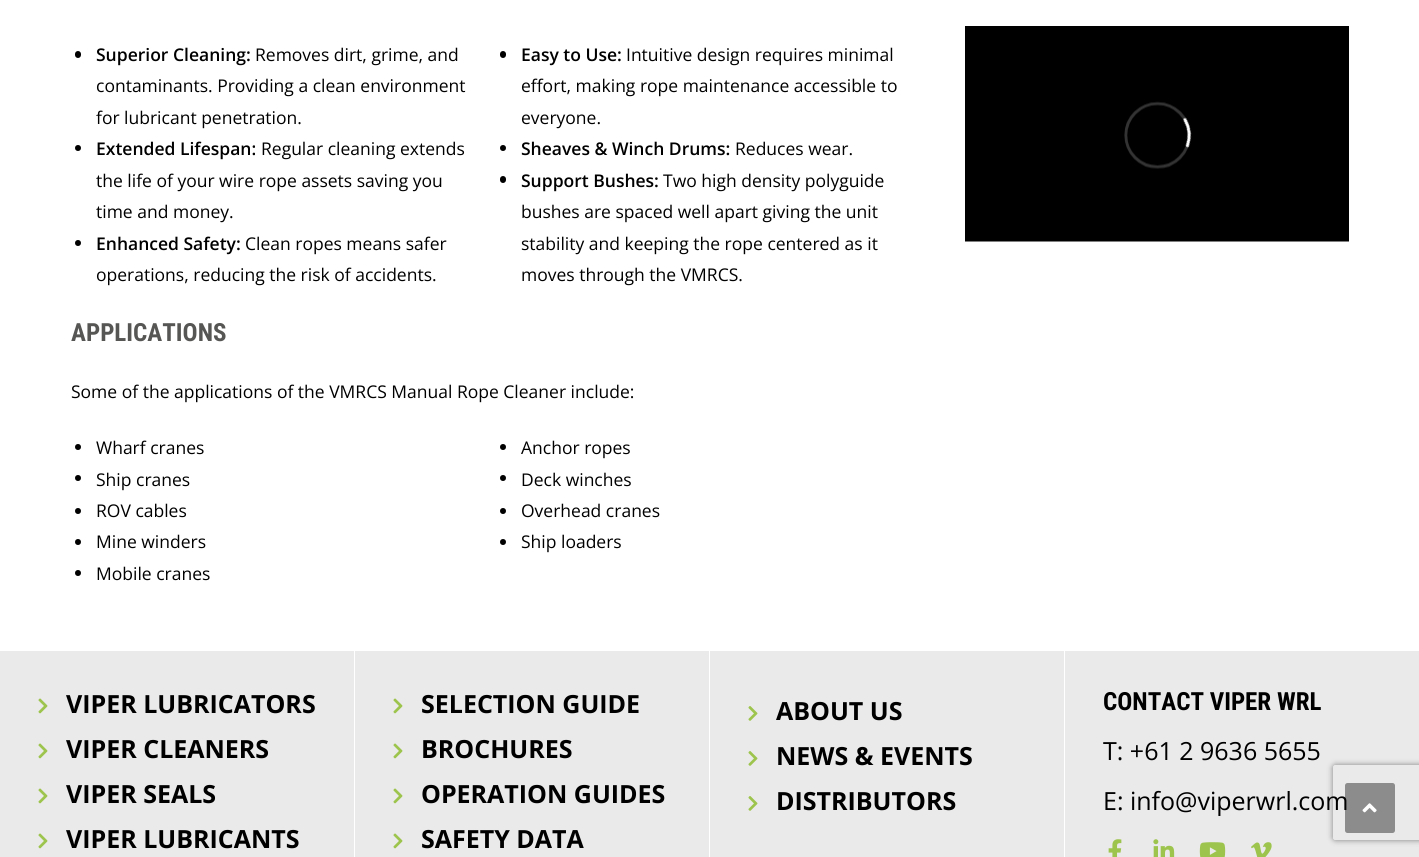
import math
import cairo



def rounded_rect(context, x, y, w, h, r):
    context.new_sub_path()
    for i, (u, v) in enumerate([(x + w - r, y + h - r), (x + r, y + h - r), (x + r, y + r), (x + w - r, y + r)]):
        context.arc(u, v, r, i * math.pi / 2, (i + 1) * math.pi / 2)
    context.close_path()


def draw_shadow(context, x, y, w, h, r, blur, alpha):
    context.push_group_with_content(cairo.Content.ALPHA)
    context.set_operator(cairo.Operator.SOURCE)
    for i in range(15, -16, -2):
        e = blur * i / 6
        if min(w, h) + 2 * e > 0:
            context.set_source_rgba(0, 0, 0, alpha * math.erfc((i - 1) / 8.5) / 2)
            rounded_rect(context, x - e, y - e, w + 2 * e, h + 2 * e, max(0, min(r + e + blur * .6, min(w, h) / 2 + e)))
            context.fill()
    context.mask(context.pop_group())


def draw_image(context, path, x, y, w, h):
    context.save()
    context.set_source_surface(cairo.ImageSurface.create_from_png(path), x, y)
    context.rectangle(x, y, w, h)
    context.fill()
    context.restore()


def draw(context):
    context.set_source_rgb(1, 1, 1)
    context.paint()
    context.set_source_rgb(0, 0, 0)
    rounded_rect(context, 75, 51, 6, 7, 3)
    context.fill()
    rounded_rect(context, 500, 51, 6, 7, 3)
    context.fill()
    context.arc(78, 148, 3, 0, 2 * math.pi)
    context.fill()
    context.arc(503, 148, 3, 0, 2 * math.pi)
    context.fill()
    context.arc(78, 243, 3, 0, 2 * math.pi)
    context.fill()
    rounded_rect(context, 500, 176, 6, 7, 3)
    context.fill()
    context.arc(78, 447, 3, 0, 2 * math.pi)
    context.fill()
    context.arc(503, 447, 3, 0, 2 * math.pi)
    context.fill()
    context.arc(78, 478, 3, 0, 2 * math.pi)
    context.fill()
    context.arc(503, 478, 3, 0, 2 * math.pi)
    context.fill()
    context.arc(78, 511, 3, 0, 2 * math.pi)
    context.fill()
    context.arc(503, 511, 3, 0, 2 * math.pi)
    context.fill()
    context.arc(78, 542, 3, 0, 2 * math.pi)
    context.fill()
    context.arc(503, 542, 3, 0, 2 * math.pi)
    context.fill()
    context.arc(78, 573, 3, 0, 2 * math.pi)
    context.fill()
    context.rectangle(965, 26, 384, 75)
    context.fill()
    draw_image(context, "images/1.png", 965, 101, 384, 141)
    context.set_source_rgb(234 / 255, 234 / 255, 234 / 255)
    context.rectangle(0, 651, 1419, 206)
    context.fill()
    context.set_source_rgb(1, 1, 1)
    context.rectangle(354, 651, 1, 206)
    context.fill()
    draw_image(context, "images/2.png", 38, 698, 10, 16)
    draw_image(context, "images/2.png", 38, 743, 10, 16)
    draw_image(context, "images/2.png", 38, 788, 10, 16)
    draw_image(context, "images/2.png", 38, 833, 10, 16)
    context.rectangle(709, 651, 1, 206)
    context.fill()
    draw_image(context, "images/2.png", 393, 698, 10, 16)
    draw_image(context, "images/2.png", 393, 743, 10, 16)
    draw_image(context, "images/2.png", 393, 788, 10, 16)
    draw_image(context, "images/2.png", 393, 833, 10, 16)
    context.rectangle(1064, 651, 1, 206)
    context.fill()
    draw_image(context, "images/3.png", 748, 706, 10, 15)
    draw_image(context, "images/3.png", 748, 751, 10, 15)
    draw_image(context, "images/3.png", 748, 796, 10, 15)
    draw_image(context, "images/4.png", 1108, 839, 14, 18)
    draw_image(context, "images/5.png", 1153, 839, 22, 18)
    draw_image(context, "images/6.png", 1199, 842, 27, 15)
    draw_image(context, "images/7.png", 1251, 842, 21, 15)
    context.save()
    context.set_fill_rule(cairo.FillRule.EVEN_ODD)
    context.new_path()
    context.move_to(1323, 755)
    context.line_to(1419, 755)
    context.line_to(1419, 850)
    context.line_to(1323, 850)
    context.close_path()
    context.move_to(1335.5, 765)
    context.line_to(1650.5, 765)
    context.curve_to(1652, 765, 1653, 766, 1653, 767.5)
    context.line_to(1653, 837.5)
    context.curve_to(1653, 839, 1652, 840, 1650.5, 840)
    context.line_to(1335.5, 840)
    context.curve_to(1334, 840, 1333, 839, 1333, 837.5)
    context.line_to(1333, 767.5)
    context.curve_to(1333, 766, 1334, 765, 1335.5, 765)
    context.close_path()
    context.clip()
    context.set_source_rgb(128 / 255, 128 / 255, 128 / 255)
    draw_shadow(context, 1333, 765, 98, 75, 2.5, 3, 1)
    context.restore()
    context.select_font_face("Open Sans SemiBold")
    context.set_font_size(17.5)
    context.set_source_rgb(0, 0, 0)
    context.move_to(96, 61)
    context.show_text("Superior Cleaning:")
    context.select_font_face("Open Sans")
    context.move_to(255, 61)
    context.show_text("Removes dirt, grime, and")
    context.move_to(96, 92)
    context.show_text("contaminants. Providing a clean environment")
    context.move_to(96, 124)
    context.show_text("for lubricant penetration.")
    context.select_font_face("Open Sans SemiBold")
    context.move_to(521, 61)
    context.show_text("Easy to Use:")
    context.select_font_face("Open Sans")
    context.move_to(626, 61)
    context.show_text("Intuitive design requires minimal")
    context.move_to(521, 92)
    context.show_text("effort, making rope maintenance accessible to")
    context.move_to(521, 124)
    context.show_text("everyone.")
    context.select_font_face("Open Sans SemiBold")
    context.move_to(96, 155)
    context.show_text("Extended Lifespan:")
    context.select_font_face("Open Sans")
    context.move_to(261, 155)
    context.show_text("Regular cleaning extends")
    context.move_to(96, 187)
    context.show_text("the life of your wire rope assets saving you")
    context.move_to(96, 218)
    context.show_text("time and money.")
    context.select_font_face("Open Sans SemiBold")
    context.move_to(521, 155)
    context.show_text("Sheaves & Winch Drums:")
    context.select_font_face("Open Sans")
    context.move_to(735, 155)
    context.show_text("Reduces wear.")
    context.select_font_face("Open Sans SemiBold")
    context.move_to(96, 250)
    context.show_text("Enhanced Safety:")
    context.select_font_face("Open Sans")
    context.move_to(245, 250)
    context.show_text("Clean ropes means safer")
    context.move_to(96, 281)
    context.show_text("operations, reducing the risk of accidents.")
    context.select_font_face("Open Sans SemiBold")
    context.move_to(521, 187)
    context.show_text("Support Bushes:")
    context.select_font_face("Open Sans")
    context.move_to(663, 187)
    context.show_text("Two high density polyguide")
    context.move_to(521, 218)
    context.show_text("bushes are spaced well apart giving the unit")
    context.move_to(521, 250)
    context.show_text("stability and keeping the rope centered as it")
    context.move_to(521, 281)
    context.show_text("moves through the VMRCS.")
    context.select_font_face("Roboto Condensed", cairo.FontSlant.NORMAL, cairo.FontWeight.BOLD)
    context.set_font_size(25)
    context.set_source_rgb(86 / 255, 86 / 255, 84 / 255)
    context.move_to(71, 341)
    context.show_text("APPLICATIONS")
    context.select_font_face("Open Sans")
    context.set_font_size(17.5)
    context.set_source_rgb(0, 0, 0)
    context.move_to(71, 398)
    context.show_text("Some of the applications of the VMRCS Manual Rope Cleaner include:")
    context.move_to(96, 454)
    context.show_text("Wharf cranes")
    context.move_to(521, 454)
    context.show_text("Anchor ropes")
    context.move_to(96, 486)
    context.show_text("Ship cranes")
    context.move_to(521, 486)
    context.show_text("Deck winches")
    context.move_to(96, 517)
    context.show_text("ROV cables")
    context.move_to(521, 517)
    context.show_text("Overhead cranes")
    context.move_to(96, 548)
    context.show_text("Mine winders")
    context.move_to(521, 548)
    context.show_text("Ship loaders")
    context.move_to(96, 580)
    context.show_text("Mobile cranes")
    context.select_font_face("Open Sans", cairo.FontSlant.NORMAL, cairo.FontWeight.BOLD)
    context.set_font_size(25)
    context.move_to(66, 713)
    context.show_text("VIPER LUBRICATORS")
    context.move_to(66, 758)
    context.show_text("VIPER CLEANERS")
    context.move_to(66, 803)
    context.show_text("VIPER SEALS")
    context.move_to(66, 848)
    context.show_text("VIPER LUBRICANTS")
    context.move_to(421, 713)
    context.show_text("SELECTION GUIDE")
    context.move_to(421, 758)
    context.show_text("BROCHURES")
    context.move_to(421, 803)
    context.show_text("OPERATION GUIDES")
    context.move_to(421, 848)
    context.show_text("SAFETY DATA")
    context.move_to(776, 720)
    context.show_text("ABOUT US")
    context.move_to(776, 765)
    context.show_text("NEWS & EVENTS")
    context.move_to(776, 810)
    context.show_text("DISTRIBUTORS")
    context.select_font_face("Roboto Condensed", cairo.FontSlant.NORMAL, cairo.FontWeight.BOLD)
    context.move_to(1103, 710)
    context.show_text("CONTACT VIPER WRL")
    context.select_font_face("Open Sans")
    context.move_to(1103, 760)
    context.show_text("T: +61 2 9636 5655")
    context.move_to(1103, 810)
    context.show_text("E: info@viperwrl.com")
    context.set_source_rgba(0, 0, 0, 0.4)
    rounded_rect(context, 1345, 783, 50, 50, 2.5)
    context.fill()
    draw_image(context, "images/8.png", 1362, 803, 15, 10)


surface = cairo.ImageSurface(cairo.Format.RGB24, 1419, 857)
context = cairo.Context(surface)
options = cairo.FontOptions()
options.set_hint_metrics(cairo.HintMetrics.OFF)
options.set_hint_style(cairo.HintStyle.NONE)
context.set_font_options(options)
context.set_miter_limit(4)
draw(context)
surface.write_to_png("out.png")
